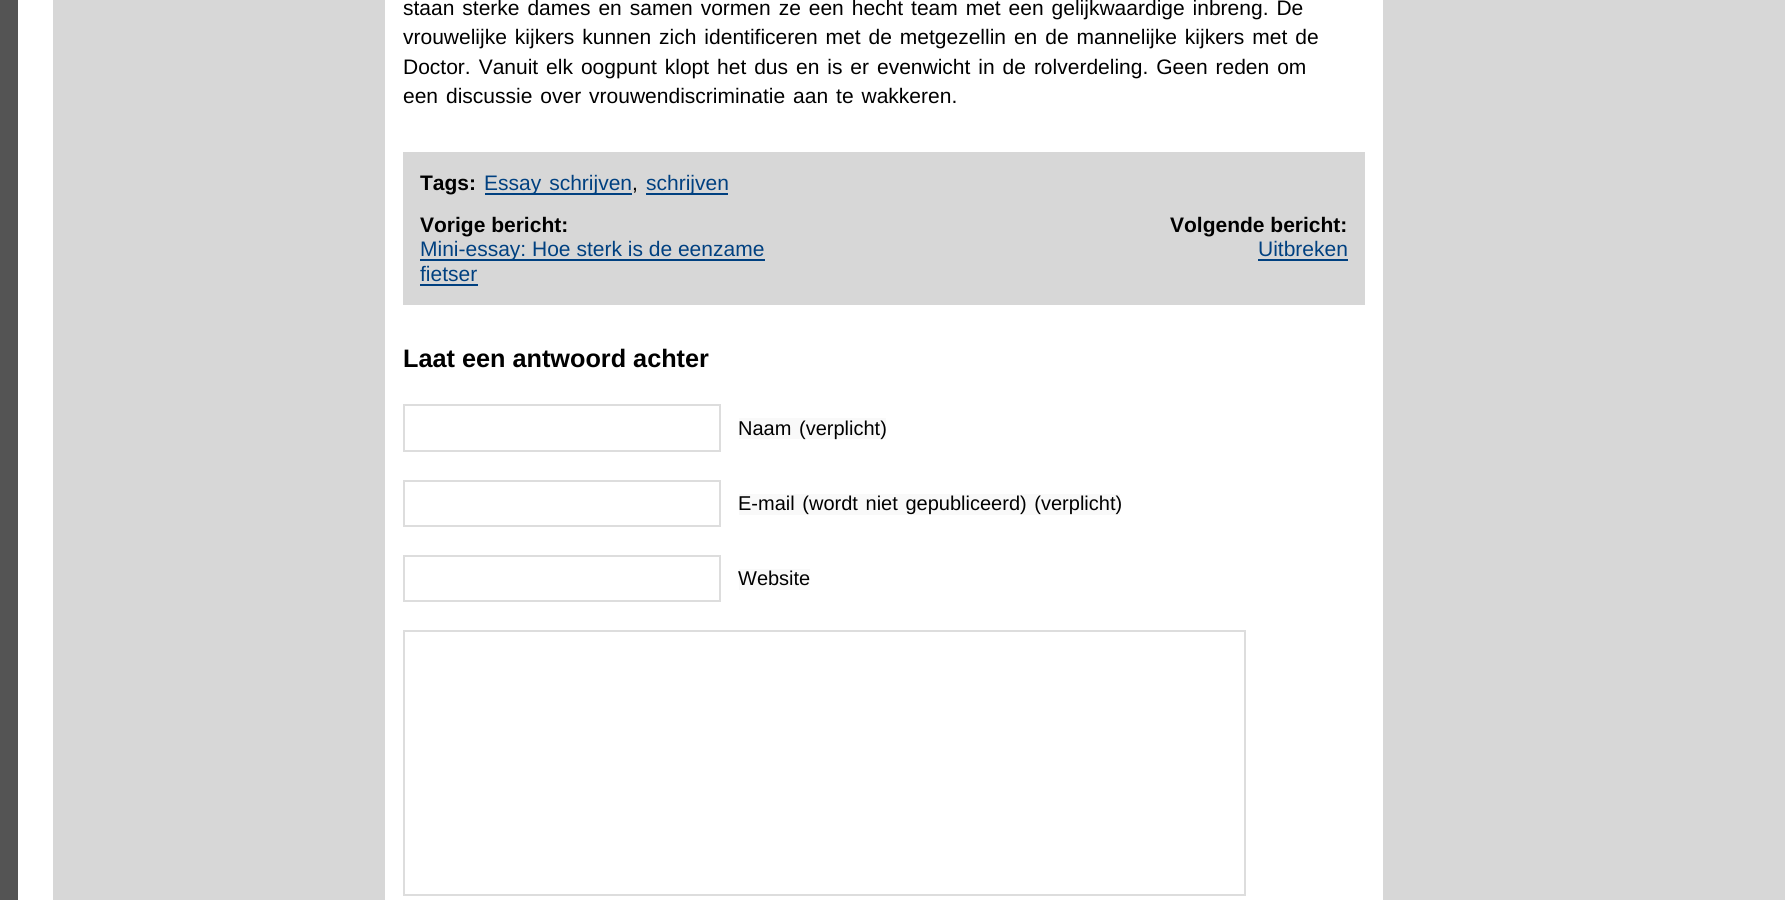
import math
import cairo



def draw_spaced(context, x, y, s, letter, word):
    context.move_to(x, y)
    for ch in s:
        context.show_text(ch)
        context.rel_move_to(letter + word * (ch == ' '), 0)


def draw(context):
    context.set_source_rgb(84 / 255, 84 / 255, 84 / 255)
    context.paint()
    context.set_source_rgb(1, 1, 1)
    context.rectangle(18, 0, 1773, 900)
    context.fill()
    context.set_source_rgb(215 / 255, 215 / 255, 215 / 255)
    context.rectangle(53, 0, 1732, 900)
    context.fill()
    context.set_source_rgb(1, 1, 1)
    context.rectangle(385, 0, 998, 900)
    context.fill()
    context.set_source_rgb(215 / 255, 215 / 255, 215 / 255)
    context.rectangle(403, 152, 962, 153)
    context.fill()
    context.set_source_rgb(0, 64 / 255, 128 / 255)
    context.rectangle(485, 193, 147, 2)
    context.fill()
    context.rectangle(646, 193, 82, 2)
    context.fill()
    context.rectangle(420, 259, 345, 2)
    context.fill()
    context.rectangle(420, 284, 58, 2)
    context.fill()
    context.rectangle(1258, 259, 90, 2)
    context.fill()
    context.rectangle(404, 405, 316, 46)
    context.set_source_rgb(221 / 255, 221 / 255, 221 / 255)
    context.stroke()
    context.set_source_rgb(249 / 255, 249 / 255, 249 / 255)
    context.rectangle(739, 418, 147, 21)
    context.fill()
    context.rectangle(404, 481, 316, 45)
    context.set_source_rgb(221 / 255, 221 / 255, 221 / 255)
    context.stroke()
    context.set_source_rgb(249 / 255, 249 / 255, 249 / 255)
    context.rectangle(739, 494, 381, 21)
    context.fill()
    context.rectangle(404, 556, 316, 45)
    context.set_source_rgb(221 / 255, 221 / 255, 221 / 255)
    context.stroke()
    context.set_source_rgb(249 / 255, 249 / 255, 249 / 255)
    context.rectangle(739, 569, 71, 21)
    context.fill()
    context.rectangle(404, 631, 841, 264)
    context.set_source_rgb(221 / 255, 221 / 255, 221 / 255)
    context.stroke()
    context.select_font_face("Liberation Sans")
    context.set_font_size(21)
    context.set_source_rgb(0, 0, 0)
    draw_spaced(context, 403, 15, "staan sterke dames en samen vormen ze een hecht team met een gelijkwaardige inbreng. De", 0, 2.1)
    draw_spaced(context, 403, 44, "vrouwelijke kijkers kunnen zich identificeren met de metgezellin en de mannelijke kijkers met de", 0, 2.1)
    draw_spaced(context, 403, 74, "Doctor. Vanuit elk oogpunt klopt het dus en is er evenwicht in de rolverdeling. Geen reden om", 0, 2.1)
    draw_spaced(context, 403, 103, "een discussie over vrouwendiscriminatie aan te wakkeren.", 0, 2.1)
    context.select_font_face("Liberation Sans", cairo.FontSlant.NORMAL, cairo.FontWeight.BOLD)
    context.move_to(420, 190)
    context.show_text("Tags:")
    context.select_font_face("Liberation Sans")
    context.set_source_rgb(0, 64 / 255, 128 / 255)
    draw_spaced(context, 484, 190, "Essay schrijven", 0, 2.1)
    context.set_source_rgb(0, 0, 0)
    context.move_to(632, 190)
    context.show_text(",")
    context.set_source_rgb(0, 64 / 255, 128 / 255)
    context.move_to(646, 190)
    context.show_text("schrijven")
    context.select_font_face("Liberation Sans", cairo.FontSlant.NORMAL, cairo.FontWeight.BOLD)
    context.set_source_rgb(0, 0, 0)
    context.move_to(420, 232)
    context.show_text("Vorige bericht:")
    context.select_font_face("Liberation Sans")
    context.set_source_rgb(0, 64 / 255, 128 / 255)
    context.move_to(420, 256)
    context.show_text("Mini-essay: Hoe sterk is de eenzame")
    context.move_to(420, 281)
    context.show_text("fietser")
    context.select_font_face("Liberation Sans", cairo.FontSlant.NORMAL, cairo.FontWeight.BOLD)
    context.set_source_rgb(0, 0, 0)
    context.move_to(1170, 232)
    context.show_text("Volgende bericht:")
    context.select_font_face("Liberation Sans")
    context.set_source_rgb(0, 64 / 255, 128 / 255)
    context.move_to(1258, 256)
    context.show_text("Uitbreken")
    context.select_font_face("Liberation Sans", cairo.FontSlant.NORMAL, cairo.FontWeight.BOLD)
    context.set_font_size(25.25)
    context.set_source_rgb(0, 0, 0)
    context.move_to(403, 367)
    context.show_text("Laat een antwoord achter")
    context.select_font_face("Liberation Sans")
    context.set_font_size(20)
    draw_spaced(context, 738, 435, "Naam (verplicht)", 0, 2.1)
    draw_spaced(context, 738, 510, "E-mail (wordt niet gepubliceerd) (verplicht)", 0, 2.1)
    context.move_to(738, 585)
    context.show_text("Website")


surface = cairo.ImageSurface(cairo.Format.RGB24, 1791, 900)
context = cairo.Context(surface)
options = cairo.FontOptions()
options.set_hint_metrics(cairo.HintMetrics.OFF)
options.set_hint_style(cairo.HintStyle.NONE)
context.set_font_options(options)
context.set_miter_limit(4)
draw(context)
surface.write_to_png("out.png")
